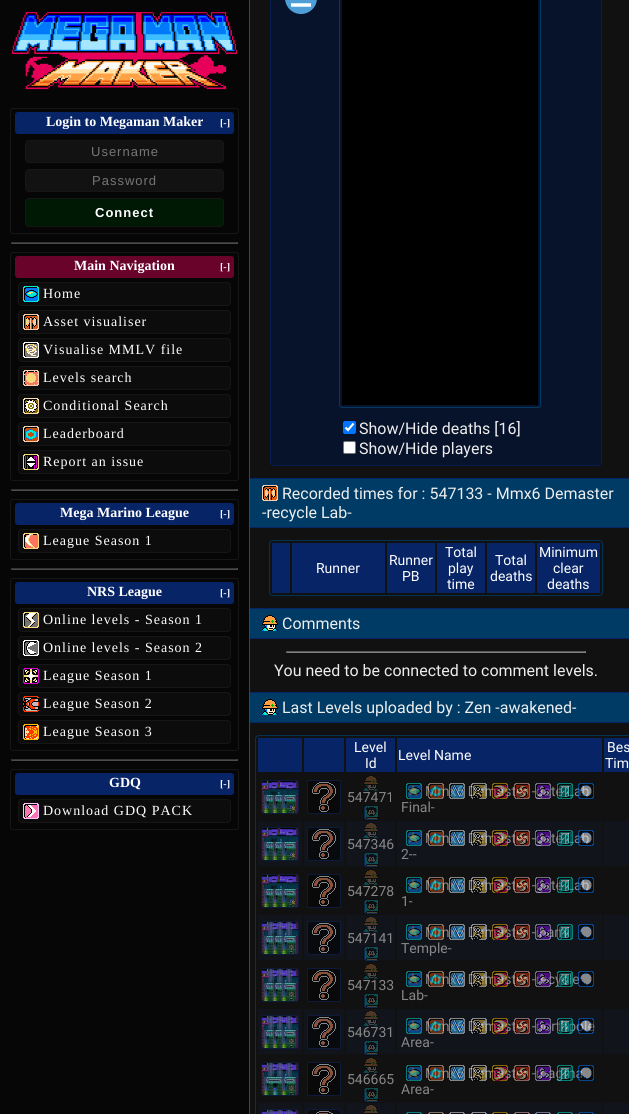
import math
import cairo



def draw_spaced(context, x, y, s, letter, word):
    context.move_to(x, y)
    for ch in s:
        context.show_text(ch)
        context.rel_move_to(letter + word * (ch == ' '), 0)


def rounded_rect(context, x, y, w, h, r):
    context.new_sub_path()
    for i, (u, v) in enumerate([(x + w - r, y + h - r), (x + r, y + h - r), (x + r, y + r), (x + w - r, y + r)]):
        context.arc(u, v, r, i * math.pi / 2, (i + 1) * math.pi / 2)
    context.close_path()


def draw_image(context, path, x, y, w, h):
    context.save()
    context.set_source_surface(cairo.ImageSurface.create_from_png(path), x, y)
    context.rectangle(x, y, w, h)
    context.fill()
    context.restore()


def draw(context):
    context.set_source_rgb(17 / 255, 17 / 255, 17 / 255)
    context.paint()
    context.set_source_rgb(6 / 255, 6 / 255, 6 / 255)
    context.rectangle(0, 0, 249, 1114)
    context.fill()
    context.set_source_rgb(68 / 255, 68 / 255, 68 / 255)
    context.rectangle(249, 0, 1, 1114)
    context.fill()
    draw_image(context, "images/1.png", 12, 12, 225, 78)
    rounded_rect(context, 10.5, 108.5, 228, 125, 2.5)
    context.set_source_rgb(22 / 255, 22 / 255, 22 / 255)
    context.set_line_width(1)
    context.stroke()
    context.set_source_rgb(7 / 255, 36 / 255, 103 / 255)
    rounded_rect(context, 15, 112, 219, 22, 3)
    context.fill()
    context.set_source_rgb(18 / 255, 18 / 255, 18 / 255)
    rounded_rect(context, 25.5, 140.5, 198, 22, 3.5)
    context.fill_preserve()
    context.set_source_rgb(22 / 255, 22 / 255, 22 / 255)
    context.stroke()
    context.set_source_rgb(18 / 255, 18 / 255, 18 / 255)
    rounded_rect(context, 25.5, 169.5, 198, 22, 3.5)
    context.fill_preserve()
    context.set_source_rgb(22 / 255, 22 / 255, 22 / 255)
    context.stroke()
    context.set_source_rgb(0, 25 / 255, 5 / 255)
    rounded_rect(context, 25.5, 198.5, 198, 28, 3.5)
    context.fill_preserve()
    context.set_source_rgb(22 / 255, 22 / 255, 22 / 255)
    context.stroke()
    context.set_source_rgb(52 / 255, 52 / 255, 52 / 255)
    context.rectangle(11, 242, 227, 1)
    context.fill()
    context.set_source_rgb(76 / 255, 76 / 255, 76 / 255)
    context.rectangle(237, 242, 1, 2)
    context.fill()
    context.rectangle(11, 243, 227, 1)
    context.fill()
    context.set_source_rgb(52 / 255, 52 / 255, 52 / 255)
    context.rectangle(11, 242, 1, 2)
    context.fill()
    rounded_rect(context, 10.5, 252.5, 228, 228, 2.5)
    context.set_source_rgb(22 / 255, 22 / 255, 22 / 255)
    context.stroke()
    context.set_source_rgb(105 / 255, 3 / 255, 42 / 255)
    rounded_rect(context, 15, 256, 219, 22, 3)
    context.fill()
    context.set_source_rgb(12 / 255, 12 / 255, 12 / 255)
    rounded_rect(context, 18, 282, 213, 24, 4)
    context.fill()
    draw_image(context, "images/2.png", 23, 286, 16, 16)
    rounded_rect(context, 18.5, 282.5, 212, 23, 3.5)
    context.set_source_rgb(22 / 255, 22 / 255, 22 / 255)
    context.stroke()
    context.set_source_rgb(12 / 255, 12 / 255, 12 / 255)
    rounded_rect(context, 18, 310, 213, 24, 4)
    context.fill()
    draw_image(context, "images/3.png", 23, 314, 16, 16)
    rounded_rect(context, 18.5, 310.5, 212, 23, 3.5)
    context.set_source_rgb(22 / 255, 22 / 255, 22 / 255)
    context.stroke()
    context.set_source_rgb(12 / 255, 12 / 255, 12 / 255)
    rounded_rect(context, 18, 338, 213, 24, 4)
    context.fill()
    draw_image(context, "images/4.png", 23, 342, 16, 16)
    rounded_rect(context, 18.5, 338.5, 212, 23, 3.5)
    context.set_source_rgb(22 / 255, 22 / 255, 22 / 255)
    context.stroke()
    context.set_source_rgb(12 / 255, 12 / 255, 12 / 255)
    rounded_rect(context, 18, 366, 213, 24, 4)
    context.fill()
    draw_image(context, "images/5.png", 23, 370, 16, 16)
    rounded_rect(context, 18.5, 366.5, 212, 23, 3.5)
    context.set_source_rgb(22 / 255, 22 / 255, 22 / 255)
    context.stroke()
    context.set_source_rgb(12 / 255, 12 / 255, 12 / 255)
    rounded_rect(context, 18, 394, 213, 24, 4)
    context.fill()
    draw_image(context, "images/6.png", 23, 398, 16, 16)
    rounded_rect(context, 18.5, 394.5, 212, 23, 3.5)
    context.set_source_rgb(22 / 255, 22 / 255, 22 / 255)
    context.stroke()
    context.set_source_rgb(12 / 255, 12 / 255, 12 / 255)
    rounded_rect(context, 18, 422, 213, 24, 4)
    context.fill()
    draw_image(context, "images/7.png", 23, 426, 16, 16)
    rounded_rect(context, 18.5, 422.5, 212, 23, 3.5)
    context.set_source_rgb(22 / 255, 22 / 255, 22 / 255)
    context.stroke()
    context.set_source_rgb(12 / 255, 12 / 255, 12 / 255)
    rounded_rect(context, 18, 450, 213, 24, 4)
    context.fill()
    draw_image(context, "images/8.png", 23, 454, 16, 16)
    rounded_rect(context, 18.5, 450.5, 212, 23, 3.5)
    context.set_source_rgb(22 / 255, 22 / 255, 22 / 255)
    context.stroke()
    context.set_source_rgb(52 / 255, 52 / 255, 52 / 255)
    context.rectangle(11, 489, 227, 1)
    context.fill()
    context.set_source_rgb(76 / 255, 76 / 255, 76 / 255)
    context.rectangle(237, 489, 1, 2)
    context.fill()
    context.rectangle(11, 490, 227, 1)
    context.fill()
    context.set_source_rgb(52 / 255, 52 / 255, 52 / 255)
    context.rectangle(11, 489, 1, 2)
    context.fill()
    rounded_rect(context, 10.5, 499.5, 228, 60, 2.5)
    context.set_source_rgb(22 / 255, 22 / 255, 22 / 255)
    context.stroke()
    context.set_source_rgb(7 / 255, 36 / 255, 103 / 255)
    rounded_rect(context, 15, 503, 219, 22, 3)
    context.fill()
    context.set_source_rgb(12 / 255, 12 / 255, 12 / 255)
    rounded_rect(context, 18, 529, 213, 24, 4)
    context.fill()
    draw_image(context, "images/9.png", 23, 533, 16, 16)
    rounded_rect(context, 18.5, 529.5, 212, 23, 3.5)
    context.set_source_rgb(22 / 255, 22 / 255, 22 / 255)
    context.stroke()
    context.set_source_rgb(52 / 255, 52 / 255, 52 / 255)
    context.rectangle(11, 568, 227, 1)
    context.fill()
    context.set_source_rgb(76 / 255, 76 / 255, 76 / 255)
    context.rectangle(237, 568, 1, 2)
    context.fill()
    context.rectangle(11, 569, 227, 1)
    context.fill()
    context.set_source_rgb(52 / 255, 52 / 255, 52 / 255)
    context.rectangle(11, 568, 1, 2)
    context.fill()
    rounded_rect(context, 10.5, 578.5, 228, 172, 2.5)
    context.set_source_rgb(22 / 255, 22 / 255, 22 / 255)
    context.stroke()
    context.set_source_rgb(7 / 255, 36 / 255, 103 / 255)
    rounded_rect(context, 15, 582, 219, 22, 3)
    context.fill()
    context.set_source_rgb(12 / 255, 12 / 255, 12 / 255)
    rounded_rect(context, 18, 608, 213, 24, 4)
    context.fill()
    draw_image(context, "images/10.png", 23, 612, 16, 16)
    rounded_rect(context, 18.5, 608.5, 212, 23, 3.5)
    context.set_source_rgb(22 / 255, 22 / 255, 22 / 255)
    context.stroke()
    context.set_source_rgb(12 / 255, 12 / 255, 12 / 255)
    rounded_rect(context, 18, 636, 213, 24, 4)
    context.fill()
    draw_image(context, "images/11.png", 23, 640, 16, 16)
    rounded_rect(context, 18.5, 636.5, 212, 23, 3.5)
    context.set_source_rgb(22 / 255, 22 / 255, 22 / 255)
    context.stroke()
    context.set_source_rgb(12 / 255, 12 / 255, 12 / 255)
    rounded_rect(context, 18, 664, 213, 24, 4)
    context.fill()
    draw_image(context, "images/12.png", 23, 668, 16, 16)
    rounded_rect(context, 18.5, 664.5, 212, 23, 3.5)
    context.set_source_rgb(22 / 255, 22 / 255, 22 / 255)
    context.stroke()
    context.set_source_rgb(12 / 255, 12 / 255, 12 / 255)
    rounded_rect(context, 18, 692, 213, 24, 4)
    context.fill()
    draw_image(context, "images/13.png", 23, 696, 16, 16)
    rounded_rect(context, 18.5, 692.5, 212, 23, 3.5)
    context.set_source_rgb(22 / 255, 22 / 255, 22 / 255)
    context.stroke()
    context.set_source_rgb(12 / 255, 12 / 255, 12 / 255)
    rounded_rect(context, 18, 720, 213, 24, 4)
    context.fill()
    draw_image(context, "images/14.png", 23, 724, 16, 16)
    rounded_rect(context, 18.5, 720.5, 212, 23, 3.5)
    context.set_source_rgb(22 / 255, 22 / 255, 22 / 255)
    context.stroke()
    context.set_source_rgb(52 / 255, 52 / 255, 52 / 255)
    context.rectangle(11, 759, 227, 1)
    context.fill()
    context.set_source_rgb(76 / 255, 76 / 255, 76 / 255)
    context.rectangle(237, 759, 1, 2)
    context.fill()
    context.rectangle(11, 760, 227, 1)
    context.fill()
    context.set_source_rgb(52 / 255, 52 / 255, 52 / 255)
    context.rectangle(11, 759, 1, 2)
    context.fill()
    rounded_rect(context, 10.5, 769.5, 228, 60, 2.5)
    context.set_source_rgb(22 / 255, 22 / 255, 22 / 255)
    context.stroke()
    context.set_source_rgb(7 / 255, 36 / 255, 103 / 255)
    rounded_rect(context, 15, 773, 219, 22, 3)
    context.fill()
    context.set_source_rgb(12 / 255, 12 / 255, 12 / 255)
    rounded_rect(context, 18, 799, 213, 24, 4)
    context.fill()
    draw_image(context, "images/15.png", 23, 803, 16, 16)
    rounded_rect(context, 18.5, 799.5, 212, 23, 3.5)
    context.set_source_rgb(22 / 255, 22 / 255, 22 / 255)
    context.stroke()
    context.set_source_rgb(7 / 255, 18 / 255, 43 / 255)
    rounded_rect(context, 270, -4, 332, 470, 4)
    context.fill()
    rounded_rect(context, 270.5, -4.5, 331, 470, 3.5)
    context.set_source_rgba(7 / 255, 36 / 255, 103 / 255, 0.6)
    context.stroke()
    draw_image(context, "images/16.png", 285, 0, 32, 14)
    rounded_rect(context, 339.5, -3.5, 201, 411, 2.5)
    context.set_source_rgb(0, 59 / 255, 101 / 255)
    context.stroke()
    context.set_source_rgb(0, 0, 0)
    context.rectangle(342, 0, 196, 405)
    context.fill()
    context.set_source_rgb(0, 117 / 255, 1)
    rounded_rect(context, 343, 421, 13, 13, 2)
    context.fill()
    context.new_path()
    context.move_to(345.5, 427.5)
    context.line_to(348, 430)
    context.line_to(353.5, 423.5)
    context.set_source_rgb(1, 1, 1)
    context.set_line_width(2.1)
    context.stroke()
    rounded_rect(context, 343.5, 441.5, 12, 12, 1.5)
    context.fill_preserve()
    context.set_source_rgb(118 / 255, 118 / 255, 118 / 255)
    context.set_line_width(1)
    context.stroke()
    context.set_source_rgb(0, 59 / 255, 101 / 255)
    context.rectangle(250, 479, 379, 48)
    context.fill()
    context.set_source_rgb(7 / 255, 36 / 255, 103 / 255)
    context.rectangle(250, 478, 379, 1)
    context.fill()
    context.rectangle(250, 527, 379, 1)
    context.fill()
    draw_image(context, "images/17.png", 262, 485, 16, 16)
    rounded_rect(context, 269.5, 540.5, 333, 55, 3.5)
    context.set_source_rgb(3 / 255, 51 / 255, 84 / 255)
    context.stroke()
    context.set_source_rgb(7 / 255, 36 / 255, 103 / 255)
    context.rectangle(272, 543, 18, 50)
    context.fill()
    context.rectangle(292, 543, 93, 50)
    context.fill()
    context.rectangle(387, 543, 48, 50)
    context.fill()
    context.rectangle(437, 543, 48, 50)
    context.fill()
    context.rectangle(487, 543, 48, 50)
    context.fill()
    context.rectangle(537, 543, 63, 50)
    context.fill()
    context.set_source_rgb(0, 59 / 255, 101 / 255)
    context.rectangle(250, 609, 379, 29)
    context.fill()
    context.set_source_rgb(7 / 255, 36 / 255, 103 / 255)
    context.rectangle(250, 608, 379, 1)
    context.fill()
    context.rectangle(250, 638, 379, 1)
    context.fill()
    draw_image(context, "images/18.png", 262, 615, 16, 16)
    context.set_source_rgb(88 / 255, 88 / 255, 88 / 255)
    context.rectangle(286, 651, 300, 1)
    context.fill()
    context.set_source_rgb(128 / 255, 128 / 255, 128 / 255)
    context.rectangle(585, 651, 1, 2)
    context.fill()
    context.rectangle(286, 652, 300, 1)
    context.fill()
    context.set_source_rgb(88 / 255, 88 / 255, 88 / 255)
    context.rectangle(286, 651, 1, 2)
    context.fill()
    context.set_source_rgb(0, 59 / 255, 101 / 255)
    context.rectangle(250, 693, 379, 29)
    context.fill()
    context.set_source_rgb(7 / 255, 36 / 255, 103 / 255)
    context.rectangle(250, 692, 379, 1)
    context.fill()
    context.rectangle(250, 722, 379, 1)
    context.fill()
    draw_image(context, "images/18.png", 262, 699, 16, 16)
    rounded_rect(context, 255.5, 735.5, 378, 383, 3.5)
    context.set_source_rgb(3 / 255, 51 / 255, 84 / 255)
    context.stroke()
    context.set_source_rgb(7 / 255, 36 / 255, 103 / 255)
    context.rectangle(258, 738, 44, 34)
    context.fill()
    context.rectangle(304, 738, 40, 34)
    context.fill()
    context.rectangle(346, 738, 49, 34)
    context.fill()
    context.rectangle(397, 738, 205, 34)
    context.fill()
    context.rectangle(604, 738, 25, 34)
    context.fill()
    draw_image(context, "images/19.png", 262, 781, 36, 32)
    rounded_rect(context, 261.5, 780.5, 37, 33, 2.5)
    context.set_source_rgb(12 / 255, 27 / 255, 60 / 255)
    context.stroke()
    draw_image(context, "images/20.png", 262, 781, 36, 32)
    rounded_rect(context, 307.5, 780.5, 33, 33, 2.5)
    context.stroke()
    draw_image(context, "images/21.png", 308, 781, 32, 32)
    draw_image(context, "images/22.png", 363, 775, 16, 16)
    draw_image(context, "images/23.png", 363, 805, 16, 16)
    draw_image(context, "images/24.png", 406, 783, 16, 16)
    draw_image(context, "images/33.png", 407, 785, 12, 11)
    context.set_source_rgb(18 / 255, 20 / 255, 27 / 255)
    context.rectangle(258, 821, 44, 45)
    context.fill()
    draw_image(context, "images/34.png", 262, 828, 36, 32)
    rounded_rect(context, 261.5, 827.5, 37, 33, 2.5)
    context.set_source_rgb(12 / 255, 27 / 255, 60 / 255)
    context.stroke()
    draw_image(context, "images/35.png", 262, 828, 36, 32)
    context.set_source_rgb(18 / 255, 20 / 255, 27 / 255)
    context.rectangle(304, 821, 40, 45)
    context.fill()
    rounded_rect(context, 307.5, 827.5, 33, 33, 2.5)
    context.set_source_rgb(12 / 255, 27 / 255, 60 / 255)
    context.stroke()
    draw_image(context, "images/36.png", 308, 828, 32, 32)
    context.set_source_rgb(18 / 255, 20 / 255, 27 / 255)
    context.rectangle(346, 821, 49, 45)
    context.fill()
    draw_image(context, "images/37.png", 363, 822, 16, 16)
    draw_image(context, "images/38.png", 363, 852, 16, 16)
    context.rectangle(397, 821, 205, 45)
    context.fill()
    draw_image(context, "images/39.png", 406, 830, 16, 16)
    draw_image(context, "images/48.png", 407, 832, 12, 11)
    context.rectangle(604, 821, 25, 45)
    context.fill()
    draw_image(context, "images/49.png", 262, 875, 36, 32)
    rounded_rect(context, 261.5, 874.5, 37, 33, 2.5)
    context.set_source_rgb(12 / 255, 27 / 255, 60 / 255)
    context.stroke()
    draw_image(context, "images/50.png", 262, 875, 36, 32)
    rounded_rect(context, 307.5, 874.5, 33, 33, 2.5)
    context.stroke()
    draw_image(context, "images/21.png", 308, 875, 32, 32)
    draw_image(context, "images/22.png", 363, 869, 16, 16)
    draw_image(context, "images/23.png", 363, 899, 16, 16)
    draw_image(context, "images/24.png", 406, 877, 16, 16)
    draw_image(context, "images/33.png", 407, 879, 12, 11)
    context.set_source_rgb(18 / 255, 20 / 255, 27 / 255)
    context.rectangle(258, 915, 44, 45)
    context.fill()
    draw_image(context, "images/51.png", 262, 922, 36, 32)
    rounded_rect(context, 261.5, 921.5, 37, 33, 2.5)
    context.set_source_rgb(12 / 255, 27 / 255, 60 / 255)
    context.stroke()
    draw_image(context, "images/52.png", 262, 922, 36, 32)
    context.set_source_rgb(18 / 255, 20 / 255, 27 / 255)
    context.rectangle(304, 915, 40, 45)
    context.fill()
    rounded_rect(context, 307.5, 921.5, 33, 33, 2.5)
    context.set_source_rgb(12 / 255, 27 / 255, 60 / 255)
    context.stroke()
    draw_image(context, "images/36.png", 308, 922, 32, 32)
    context.set_source_rgb(18 / 255, 20 / 255, 27 / 255)
    context.rectangle(346, 915, 49, 45)
    context.fill()
    draw_image(context, "images/37.png", 363, 916, 16, 16)
    draw_image(context, "images/38.png", 363, 946, 16, 16)
    context.rectangle(397, 915, 205, 45)
    context.fill()
    draw_image(context, "images/39.png", 406, 924, 16, 16)
    draw_image(context, "images/55.png", 578, 924, 16, 16)
    draw_image(context, "images/48.png", 407, 926, 12, 11)
    context.rectangle(604, 915, 25, 45)
    context.fill()
    draw_image(context, "images/56.png", 262, 969, 36, 32)
    rounded_rect(context, 261.5, 968.5, 37, 33, 2.5)
    context.set_source_rgb(12 / 255, 27 / 255, 60 / 255)
    context.stroke()
    draw_image(context, "images/57.png", 262, 969, 36, 32)
    rounded_rect(context, 307.5, 968.5, 33, 33, 2.5)
    context.stroke()
    draw_image(context, "images/21.png", 308, 969, 32, 32)
    draw_image(context, "images/22.png", 363, 963, 16, 16)
    draw_image(context, "images/23.png", 363, 993, 16, 16)
    draw_image(context, "images/24.png", 406, 971, 16, 16)
    draw_image(context, "images/33.png", 407, 973, 12, 11)
    context.set_source_rgb(18 / 255, 20 / 255, 27 / 255)
    context.rectangle(258, 1009, 44, 45)
    context.fill()
    draw_image(context, "images/61.png", 262, 1016, 36, 32)
    rounded_rect(context, 261.5, 1015.5, 37, 33, 2.5)
    context.set_source_rgb(12 / 255, 27 / 255, 60 / 255)
    context.stroke()
    draw_image(context, "images/62.png", 262, 1016, 36, 32)
    context.set_source_rgb(18 / 255, 20 / 255, 27 / 255)
    context.rectangle(304, 1009, 40, 45)
    context.fill()
    rounded_rect(context, 307.5, 1015.5, 33, 33, 2.5)
    context.set_source_rgb(12 / 255, 27 / 255, 60 / 255)
    context.stroke()
    draw_image(context, "images/36.png", 308, 1016, 32, 32)
    context.set_source_rgb(18 / 255, 20 / 255, 27 / 255)
    context.rectangle(346, 1009, 49, 45)
    context.fill()
    draw_image(context, "images/37.png", 363, 1010, 16, 16)
    draw_image(context, "images/38.png", 363, 1040, 16, 16)
    context.rectangle(397, 1009, 205, 45)
    context.fill()
    draw_image(context, "images/39.png", 406, 1018, 16, 16)
    draw_image(context, "images/48.png", 407, 1020, 12, 11)
    context.rectangle(604, 1009, 25, 45)
    context.fill()
    draw_image(context, "images/66.png", 262, 1063, 36, 32)
    rounded_rect(context, 261.5, 1062.5, 37, 33, 2.5)
    context.set_source_rgb(12 / 255, 27 / 255, 60 / 255)
    context.stroke()
    draw_image(context, "images/67.png", 262, 1063, 36, 32)
    rounded_rect(context, 307.5, 1062.5, 33, 33, 2.5)
    context.stroke()
    draw_image(context, "images/21.png", 308, 1063, 32, 32)
    draw_image(context, "images/22.png", 363, 1057, 16, 16)
    draw_image(context, "images/23.png", 363, 1087, 16, 16)
    draw_image(context, "images/24.png", 406, 1065, 16, 16)
    draw_image(context, "images/33.png", 407, 1067, 12, 11)
    context.set_source_rgb(18 / 255, 20 / 255, 27 / 255)
    context.rectangle(258, 1103, 44, 11)
    context.fill()
    draw_image(context, "images/71.png", 262, 1110, 36, 4)
    rounded_rect(context, 261.5, 1109.5, 37, 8, 2.5)
    context.set_source_rgb(12 / 255, 27 / 255, 60 / 255)
    context.stroke()
    draw_image(context, "images/72.png", 262, 1110, 36, 4)
    context.set_source_rgb(18 / 255, 20 / 255, 27 / 255)
    context.rectangle(304, 1103, 40, 11)
    context.fill()
    rounded_rect(context, 307.5, 1109.5, 33, 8, 2.5)
    context.set_source_rgb(12 / 255, 27 / 255, 60 / 255)
    context.stroke()
    draw_image(context, "images/73.png", 308, 1110, 32, 4)
    context.set_source_rgb(18 / 255, 20 / 255, 27 / 255)
    context.rectangle(346, 1103, 49, 11)
    context.fill()
    draw_image(context, "images/74.png", 363, 1104, 16, 10)
    context.rectangle(397, 1103, 205, 11)
    context.fill()
    draw_image(context, "images/75.png", 406, 1112, 16, 2)
    draw_image(context, "images/76.png", 428, 1112, 16, 2)
    draw_image(context, "images/77.png", 449, 1112, 16, 2)
    draw_image(context, "images/78.png", 471, 1112, 16, 2)
    draw_image(context, "images/79.png", 492, 1112, 16, 2)
    draw_image(context, "images/80.png", 514, 1112, 16, 2)
    draw_image(context, "images/81.png", 535, 1112, 16, 2)
    draw_image(context, "images/82.png", 557, 1112, 16, 2)
    draw_image(context, "images/83.png", 578, 1112, 16, 2)
    context.rectangle(604, 1103, 25, 11)
    context.fill()
    context.select_font_face("Liberation Serif", cairo.FontSlant.NORMAL, cairo.FontWeight.BOLD)
    context.set_font_size(14)
    context.set_source_rgb(1, 1, 1)
    context.move_to(46, 126)
    context.show_text("Login to Megaman Maker")
    context.set_font_size(10)
    context.move_to(220, 126)
    context.show_text("[-]")
    context.select_font_face("Liberation Sans")
    context.set_font_size(13)
    context.set_source_rgb(117 / 255, 117 / 255, 117 / 255)
    draw_spaced(context, 91, 156, "Username", 1, 0)
    draw_spaced(context, 92, 185, "Password", 1, 0)
    context.select_font_face("Liberation Sans", cairo.FontSlant.NORMAL, cairo.FontWeight.BOLD)
    context.set_source_rgb(1, 1, 1)
    draw_spaced(context, 95, 217, "Connect", 1, 0)
    context.select_font_face("Liberation Serif", cairo.FontSlant.NORMAL, cairo.FontWeight.BOLD)
    context.set_font_size(14)
    context.move_to(74, 270)
    context.show_text("Main Navigation")
    context.set_font_size(10)
    context.move_to(220, 270)
    context.show_text("[-]")
    context.select_font_face("Liberation Serif")
    context.set_font_size(14)
    draw_spaced(context, 43, 298, "Home", 1, 0)
    draw_spaced(context, 43, 326, "Asset visualiser", 1, 0)
    draw_spaced(context, 43, 354, "Visualise MMLV file", 1, 0)
    draw_spaced(context, 43, 382, "Levels search", 1, 0)
    draw_spaced(context, 43, 410, "Conditional Search", 1, 0)
    draw_spaced(context, 43, 438, "Leaderboard", 1, 0)
    draw_spaced(context, 43, 466, "Report an issue", 1, 0)
    context.select_font_face("Liberation Serif", cairo.FontSlant.NORMAL, cairo.FontWeight.BOLD)
    context.move_to(60, 517)
    context.show_text("Mega Marino League")
    context.set_font_size(10)
    context.move_to(220, 517)
    context.show_text("[-]")
    context.select_font_face("Liberation Serif")
    context.set_font_size(14)
    draw_spaced(context, 43, 545, "League Season 1", 1, 0)
    context.select_font_face("Liberation Serif", cairo.FontSlant.NORMAL, cairo.FontWeight.BOLD)
    context.move_to(87, 596)
    context.show_text("NRS League")
    context.set_font_size(10)
    context.move_to(220, 596)
    context.show_text("[-]")
    context.select_font_face("Liberation Serif")
    context.set_font_size(14)
    draw_spaced(context, 43, 624, "Online levels - Season 1", 1, 0)
    draw_spaced(context, 43, 652, "Online levels - Season 2", 1, 0)
    draw_spaced(context, 43, 680, "League Season 1", 1, 0)
    draw_spaced(context, 43, 708, "League Season 2", 1, 0)
    draw_spaced(context, 43, 736, "League Season 3", 1, 0)
    context.select_font_face("Liberation Serif", cairo.FontSlant.NORMAL, cairo.FontWeight.BOLD)
    context.move_to(109, 787)
    context.show_text("GDQ")
    context.set_font_size(10)
    context.move_to(220, 787)
    context.show_text("[-]")
    context.select_font_face("Liberation Serif")
    context.set_font_size(14)
    draw_spaced(context, 43, 815, "Download GDQ PACK", 1, 0)
    context.select_font_face("Roboto")
    context.set_font_size(16)
    context.set_source_rgb(238 / 255, 238 / 255, 238 / 255)
    context.move_to(359, 434)
    context.show_text("Show/Hide deaths [16]")
    context.move_to(359, 454)
    context.show_text("Show/Hide players")
    context.move_to(282, 499)
    context.show_text("Recorded times for : 547133 - Mmx6 Demaster")
    context.move_to(262, 518)
    context.show_text("-recycle Lab-")
    context.set_font_size(14)
    context.set_source_rgb(1, 1, 1)
    context.move_to(316, 573)
    context.show_text("Runner")
    context.move_to(389, 565)
    context.show_text("Runner")
    context.move_to(402, 581)
    context.show_text("PB")
    context.move_to(445, 557)
    context.show_text("Total")
    context.move_to(448, 573)
    context.show_text("play")
    context.move_to(447, 589)
    context.show_text("time")
    context.move_to(495, 565)
    context.show_text("Total")
    context.move_to(490, 581)
    context.show_text("deaths")
    context.move_to(539, 557)
    context.show_text("Minimum")
    context.move_to(553, 573)
    context.show_text("clear")
    context.move_to(547, 589)
    context.show_text("deaths")
    context.set_font_size(16)
    context.set_source_rgb(238 / 255, 238 / 255, 238 / 255)
    context.move_to(282, 629)
    context.show_text("Comments")
    context.move_to(274, 676)
    context.show_text("You need to be connected to comment levels.")
    context.move_to(282, 713)
    context.show_text("Last Levels uploaded by : Zen -awakened-")
    context.set_font_size(14)
    context.set_source_rgb(1, 1, 1)
    context.move_to(354, 752)
    context.show_text("Level")
    context.move_to(365, 768)
    context.show_text("Id")
    context.move_to(398, 760)
    context.show_text("Level Name")
    context.move_to(607, 752)
    context.show_text("Bes")
    context.move_to(605, 768)
    context.show_text("Tim")
    context.set_source_rgb(136 / 255, 136 / 255, 136 / 255)
    context.move_to(347, 802)
    context.show_text("547471")
    context.move_to(425, 796)
    context.show_text("Mmx6 Demaster -gate Lab")
    draw_image(context, "images/32.png", 578, 783, 16, 16)
    draw_image(context, "images/31.png", 557, 783, 16, 16)
    draw_image(context, "images/30.png", 535, 783, 16, 16)
    draw_image(context, "images/29.png", 514, 783, 16, 16)
    draw_image(context, "images/28.png", 492, 783, 16, 16)
    draw_image(context, "images/27.png", 471, 783, 16, 16)
    draw_image(context, "images/26.png", 449, 783, 16, 16)
    draw_image(context, "images/25.png", 428, 783, 16, 16)
    context.move_to(401, 812)
    context.show_text("Final-")
    context.move_to(347, 849)
    context.show_text("547346")
    context.move_to(425, 843)
    context.show_text("Mmx6 Demaster -gate Lab")
    draw_image(context, "images/47.png", 578, 830, 16, 16)
    draw_image(context, "images/46.png", 557, 830, 16, 16)
    draw_image(context, "images/45.png", 535, 830, 16, 16)
    draw_image(context, "images/44.png", 514, 830, 16, 16)
    draw_image(context, "images/43.png", 492, 830, 16, 16)
    draw_image(context, "images/42.png", 471, 830, 16, 16)
    draw_image(context, "images/41.png", 449, 830, 16, 16)
    draw_image(context, "images/40.png", 428, 830, 16, 16)
    context.move_to(401, 859)
    context.show_text("2--")
    context.move_to(347, 896)
    context.show_text("547278")
    context.move_to(425, 890)
    context.show_text("Mmx6 Demaster -gate Lab")
    draw_image(context, "images/32.png", 578, 877, 16, 16)
    draw_image(context, "images/31.png", 557, 877, 16, 16)
    draw_image(context, "images/30.png", 535, 877, 16, 16)
    draw_image(context, "images/29.png", 514, 877, 16, 16)
    draw_image(context, "images/28.png", 492, 877, 16, 16)
    draw_image(context, "images/27.png", 471, 877, 16, 16)
    draw_image(context, "images/26.png", 449, 877, 16, 16)
    draw_image(context, "images/25.png", 428, 877, 16, 16)
    context.move_to(401, 906)
    context.show_text("1-")
    context.move_to(347, 943)
    context.show_text("547141")
    context.move_to(425, 937)
    context.show_text("Mmx6 Demaster -inami")
    draw_image(context, "images/54.png", 557, 924, 16, 16)
    draw_image(context, "images/53.png", 535, 924, 16, 16)
    draw_image(context, "images/44.png", 514, 924, 16, 16)
    draw_image(context, "images/43.png", 492, 924, 16, 16)
    draw_image(context, "images/42.png", 471, 924, 16, 16)
    draw_image(context, "images/41.png", 449, 924, 16, 16)
    draw_image(context, "images/40.png", 428, 924, 16, 16)
    context.move_to(401, 953)
    context.show_text("Temple-")
    context.move_to(347, 990)
    context.show_text("547133")
    context.move_to(425, 984)
    context.show_text("Mmx6 Demaster -recycle")
    draw_image(context, "images/60.png", 578, 971, 16, 16)
    draw_image(context, "images/59.png", 557, 971, 16, 16)
    draw_image(context, "images/58.png", 535, 971, 16, 16)
    draw_image(context, "images/29.png", 514, 971, 16, 16)
    draw_image(context, "images/28.png", 492, 971, 16, 16)
    draw_image(context, "images/27.png", 471, 971, 16, 16)
    draw_image(context, "images/26.png", 449, 971, 16, 16)
    draw_image(context, "images/25.png", 428, 971, 16, 16)
    context.move_to(401, 1000)
    context.show_text("Lab-")
    context.move_to(347, 1037)
    context.show_text("546731")
    context.move_to(425, 1031)
    context.show_text("Mmx6 Demaster -northpole")
    draw_image(context, "images/65.png", 578, 1018, 16, 16)
    draw_image(context, "images/64.png", 557, 1018, 16, 16)
    draw_image(context, "images/63.png", 535, 1018, 16, 16)
    draw_image(context, "images/44.png", 514, 1018, 16, 16)
    draw_image(context, "images/43.png", 492, 1018, 16, 16)
    draw_image(context, "images/42.png", 471, 1018, 16, 16)
    draw_image(context, "images/41.png", 449, 1018, 16, 16)
    draw_image(context, "images/40.png", 428, 1018, 16, 16)
    context.move_to(401, 1047)
    context.show_text("Area-")
    context.move_to(347, 1084)
    context.show_text("546665")
    context.move_to(425, 1078)
    context.show_text("Mmx6 Demaster -magma")
    draw_image(context, "images/70.png", 578, 1065, 16, 16)
    draw_image(context, "images/69.png", 557, 1065, 16, 16)
    draw_image(context, "images/68.png", 535, 1065, 16, 16)
    draw_image(context, "images/29.png", 514, 1065, 16, 16)
    draw_image(context, "images/28.png", 492, 1065, 16, 16)
    draw_image(context, "images/27.png", 471, 1065, 16, 16)
    draw_image(context, "images/26.png", 449, 1065, 16, 16)
    draw_image(context, "images/25.png", 428, 1065, 16, 16)
    context.move_to(401, 1094)
    context.show_text("Area-")


surface = cairo.ImageSurface(cairo.Format.RGB24, 629, 1114)
context = cairo.Context(surface)
options = cairo.FontOptions()
options.set_hint_metrics(cairo.HintMetrics.OFF)
options.set_hint_style(cairo.HintStyle.NONE)
context.set_font_options(options)
context.set_miter_limit(4)
draw(context)
surface.write_to_png("out.png")
